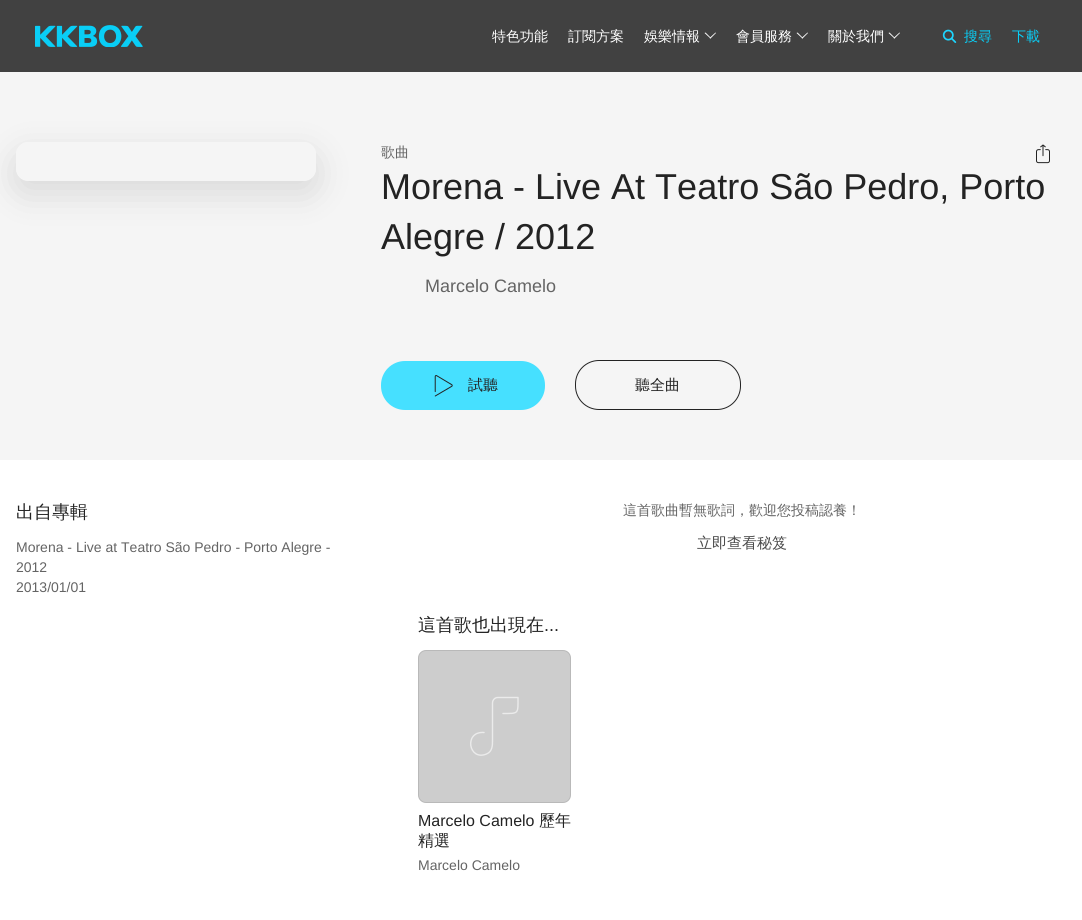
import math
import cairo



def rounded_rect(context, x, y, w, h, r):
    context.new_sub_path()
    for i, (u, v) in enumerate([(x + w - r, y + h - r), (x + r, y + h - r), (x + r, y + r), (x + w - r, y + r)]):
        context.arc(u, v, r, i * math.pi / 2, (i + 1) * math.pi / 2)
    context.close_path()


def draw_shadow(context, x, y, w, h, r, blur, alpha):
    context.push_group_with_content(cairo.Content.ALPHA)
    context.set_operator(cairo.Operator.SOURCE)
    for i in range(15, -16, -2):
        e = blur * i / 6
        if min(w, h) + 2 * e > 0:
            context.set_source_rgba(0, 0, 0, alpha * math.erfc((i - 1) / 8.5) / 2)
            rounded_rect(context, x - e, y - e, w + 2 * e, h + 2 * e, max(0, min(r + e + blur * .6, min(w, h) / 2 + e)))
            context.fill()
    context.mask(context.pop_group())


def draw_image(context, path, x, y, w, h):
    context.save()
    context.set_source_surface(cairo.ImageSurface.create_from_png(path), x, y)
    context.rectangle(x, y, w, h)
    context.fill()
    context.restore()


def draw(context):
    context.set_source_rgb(1, 1, 1)
    context.paint()
    context.set_source_rgb(65 / 255, 65 / 255, 65 / 255)
    context.rectangle(0, 0, 1082, 72)
    context.fill()
    draw_image(context, "images/1.png", 35, 25, 108, 22)
    context.set_source_rgb(1, 1, 1)
    context.new_path()
    context.move_to(715.5, 32.5)
    context.line_to(716, 33)
    context.line_to(710.5, 38.5)
    context.line_to(709.5, 38)
    context.close_path()
    context.fill()
    context.new_path()
    context.move_to(705.5, 32.5)
    context.line_to(711, 38)
    context.line_to(710.5, 38.5)
    context.line_to(704.5, 33)
    context.close_path()
    context.fill()
    context.new_path()
    context.move_to(807.5, 32.5)
    context.line_to(808, 33)
    context.line_to(802.5, 38.5)
    context.line_to(801.5, 38)
    context.close_path()
    context.fill()
    context.new_path()
    context.move_to(797.5, 32.5)
    context.line_to(803, 38)
    context.line_to(802.5, 38.5)
    context.line_to(796.5, 33)
    context.close_path()
    context.fill()
    context.new_path()
    context.move_to(899.5, 32.5)
    context.line_to(900, 33)
    context.line_to(894.5, 38.5)
    context.line_to(893.5, 38)
    context.close_path()
    context.fill()
    context.new_path()
    context.move_to(889.5, 32.5)
    context.line_to(895, 38)
    context.line_to(894.5, 38.5)
    context.line_to(888.5, 33)
    context.close_path()
    context.fill()
    draw_image(context, "images/2.png", 942, 29, 15, 14)
    context.set_source_rgb(245 / 255, 245 / 255, 245 / 255)
    context.rectangle(0, 72, 1082, 388)
    context.fill()
    context.save()
    context.set_fill_rule(cairo.FillRule.EVEN_ODD)
    context.new_path()
    context.move_to(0, 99)
    context.line_to(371, 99)
    context.line_to(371, 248)
    context.line_to(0, 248)
    context.close_path()
    context.move_to(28, 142)
    context.line_to(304, 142)
    context.curve_to(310.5, 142, 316, 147.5, 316, 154)
    context.line_to(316, 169)
    context.curve_to(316, 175.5, 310.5, 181, 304, 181)
    context.line_to(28, 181)
    context.curve_to(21.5, 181, 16, 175.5, 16, 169)
    context.line_to(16, 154)
    context.curve_to(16, 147.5, 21.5, 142, 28, 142)
    context.close_path()
    context.clip()
    context.set_source_rgb(0, 0, 0)
    draw_shadow(context, 16, 154, 300, 39, 12, 18, 0.12)
    context.restore()
    draw_image(context, "images/3.png", 1036, 144, 14, 20)
    context.set_source_rgb(70 / 255, 224 / 255, 1)
    rounded_rect(context, 381, 361, 164, 49, 24)
    context.fill()
    draw_image(context, "images/4.png", 434, 375, 19, 22)
    rounded_rect(context, 575.5, 360.5, 165, 49, 23.5)
    context.set_source_rgb(35 / 255, 35 / 255, 35 / 255)
    context.set_line_width(1)
    context.stroke()
    context.set_source_rgb(205 / 255, 205 / 255, 205 / 255)
    rounded_rect(context, 418, 650, 153, 153, 8)
    context.fill()
    context.new_path()
    context.move_to(484, 732.5)
    context.curve_to(463.5, 731, 468.5, 761.5, 486.5, 754)
    context.curve_to(492.5, 751.5, 492.5, 745.5, 492.5, 740)
    context.line_to(492.5, 742)
    context.line_to(492.5, 703)
    context.curve_to(492.5, 699.5, 495.5, 697.5, 497.5, 697.5)
    context.line_to(518, 697.5)
    context.curve_to(518, 714, 519, 713.5, 503, 713.5)
    context.set_source_rgb(235 / 255, 235 / 255, 235 / 255)
    context.set_line_width(1.4)
    context.set_line_cap(cairo.LineCap.ROUND)
    context.set_line_join(cairo.LineJoin.ROUND)
    context.stroke()
    rounded_rect(context, 418.5, 650.5, 152, 152, 7.5)
    context.set_source_rgba(0, 0, 0, 0.1)
    context.set_line_width(1)
    context.set_line_cap(cairo.LineCap.BUTT)
    context.set_line_join(cairo.LineJoin.MITER)
    context.stroke()
    context.select_font_face("WenQuanYi Zen Hei Medium")
    context.set_font_size(14)
    context.set_source_rgb(1, 1, 1)
    context.move_to(492, 41)
    context.show_text("特色功能")
    context.move_to(568, 41)
    context.show_text("訂閱方案")
    context.move_to(644, 41)
    context.show_text("娛樂情報")
    context.move_to(736, 41)
    context.show_text("會員服務")
    context.move_to(828, 41)
    context.show_text("關於我們")
    context.set_source_rgb(9 / 255, 206 / 255, 246 / 255)
    context.move_to(964, 41)
    context.show_text("搜尋")
    context.move_to(1012, 41)
    context.show_text("下載")
    context.set_source_rgb(100 / 255, 100 / 255, 100 / 255)
    context.move_to(381, 157)
    context.show_text("歌曲")
    context.select_font_face("Liberation Sans")
    context.set_font_size(36)
    context.set_source_rgb(35 / 255, 35 / 255, 35 / 255)
    context.move_to(381, 199)
    context.show_text("Morena - Live At Teatro São Pedro, Porto")
    context.move_to(381, 249)
    context.show_text("Alegre / 2012")
    context.set_font_size(18)
    context.set_source_rgb(100 / 255, 100 / 255, 100 / 255)
    context.move_to(425, 292)
    context.show_text("Marcelo Camelo")
    context.select_font_face("WenQuanYi Zen Hei Medium")
    context.set_font_size(15)
    context.set_source_rgb(35 / 255, 35 / 255, 35 / 255)
    context.move_to(468, 390)
    context.show_text("試聽")
    context.move_to(635, 390)
    context.show_text("聽全曲")
    context.set_font_size(18)
    context.move_to(16, 518)
    context.show_text("出自專輯")
    context.select_font_face("Liberation Sans")
    context.set_font_size(14)
    context.set_source_rgb(100 / 255, 100 / 255, 100 / 255)
    context.move_to(16, 552)
    context.show_text("Morena - Live at Teatro São Pedro - Porto Alegre -")
    context.move_to(16, 572)
    context.show_text("2012")
    context.move_to(16, 592)
    context.show_text("2013/01/01")
    context.select_font_face("WenQuanYi Zen Hei Medium")
    context.move_to(623, 515)
    context.show_text("這首歌曲暫無歌詞，歡迎您投稿認養！")
    context.set_font_size(15)
    context.set_source_rgb(75 / 255, 75 / 255, 75 / 255)
    context.move_to(697, 548)
    context.show_text("立即查看秘笈")
    context.set_font_size(18)
    context.set_source_rgb(35 / 255, 35 / 255, 35 / 255)
    context.move_to(418, 631)
    context.show_text("這首歌也出現在")
    context.select_font_face("Liberation Sans")
    context.move_to(544, 631)
    context.show_text("...")
    context.set_font_size(16)
    context.move_to(418, 826)
    context.show_text("Marcelo Camelo")
    context.select_font_face("WenQuanYi Zen Hei Medium")
    context.move_to(539, 826)
    context.show_text("歷年")
    context.move_to(418, 846)
    context.show_text("精選")
    context.select_font_face("Liberation Sans")
    context.set_font_size(14)
    context.set_source_rgb(100 / 255, 100 / 255, 100 / 255)
    context.move_to(418, 870)
    context.show_text("Marcelo Camelo")


surface = cairo.ImageSurface(cairo.Format.RGB24, 1082, 920)
context = cairo.Context(surface)
options = cairo.FontOptions()
options.set_hint_metrics(cairo.HintMetrics.OFF)
options.set_hint_style(cairo.HintStyle.NONE)
context.set_font_options(options)
context.set_miter_limit(4)
draw(context)
surface.write_to_png("out.png")
